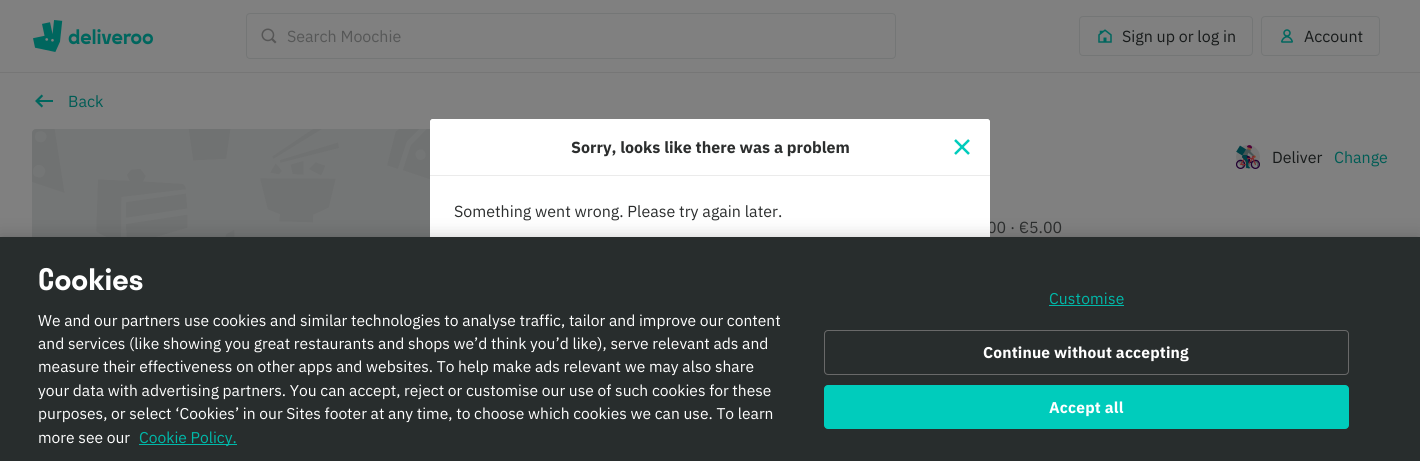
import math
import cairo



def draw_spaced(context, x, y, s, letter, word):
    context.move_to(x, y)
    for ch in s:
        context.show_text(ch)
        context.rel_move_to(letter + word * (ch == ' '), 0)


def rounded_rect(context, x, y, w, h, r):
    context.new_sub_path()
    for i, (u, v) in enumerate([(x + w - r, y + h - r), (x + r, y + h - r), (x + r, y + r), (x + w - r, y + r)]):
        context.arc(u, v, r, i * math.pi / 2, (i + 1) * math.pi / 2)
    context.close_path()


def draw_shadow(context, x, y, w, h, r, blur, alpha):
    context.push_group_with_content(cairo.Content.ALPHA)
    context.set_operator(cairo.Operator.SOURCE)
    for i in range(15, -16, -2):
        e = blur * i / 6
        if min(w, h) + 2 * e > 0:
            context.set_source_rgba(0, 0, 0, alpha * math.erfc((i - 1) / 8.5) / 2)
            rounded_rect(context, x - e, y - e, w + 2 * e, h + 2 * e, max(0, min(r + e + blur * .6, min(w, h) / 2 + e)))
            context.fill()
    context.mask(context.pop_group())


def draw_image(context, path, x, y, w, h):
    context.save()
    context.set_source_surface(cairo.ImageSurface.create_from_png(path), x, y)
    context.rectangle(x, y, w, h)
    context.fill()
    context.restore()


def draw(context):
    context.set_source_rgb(128 / 255, 128 / 255, 128 / 255)
    context.paint()
    context.set_source_rgb(118 / 255, 118 / 255, 118 / 255)
    context.rectangle(0, 72, 1420, 1)
    context.fill()
    draw_image(context, "images/1.png", 33, 20, 120, 32)
    rounded_rect(context, 246.5, 13.5, 649, 45, 3.5)
    context.set_source_rgb(116 / 255, 118 / 255, 118 / 255)
    context.set_line_width(1)
    context.stroke()
    draw_image(context, "images/2.png", 261, 28, 16, 16)
    rounded_rect(context, 1079.5, 16.5, 173, 39, 3.5)
    context.stroke()
    draw_image(context, "images/3.png", 1098, 29, 14, 14)
    rounded_rect(context, 1261.5, 16.5, 118, 39, 3.5)
    context.stroke()
    draw_image(context, "images/4.png", 1281, 29, 12, 14)
    draw_image(context, "images/5.png", 35, 94, 18, 14)
    draw_image(context, "images/6.png", 32, 129, 398, 108)
    draw_image(context, "images/7.png", 1236, 145, 24, 24)
    context.select_font_face("IBM Plex Sans")
    context.set_font_size(16)
    context.set_source_rgb(86 / 255, 87 / 255, 87 / 255)
    context.move_to(287, 42)
    context.show_text("Search Moochie")
    context.set_source_rgb(23 / 255, 26 / 255, 26 / 255)
    context.move_to(1122, 42)
    context.show_text("Sign up or log in")
    context.move_to(1304, 42)
    context.show_text("Account")
    context.set_source_rgb(0, 92 / 255, 85 / 255)
    context.move_to(68, 107)
    context.show_text("Back")
    context.set_source_rgb(23 / 255, 26 / 255, 26 / 255)
    context.move_to(1272, 163)
    context.show_text("Deliver")
    context.set_source_rgb(0, 92 / 255, 85 / 255)
    context.move_to(1334, 163)
    context.show_text("Change")
    context.set_source_rgb(44 / 255, 46 / 255, 46 / 255)
    context.move_to(987, 233)
    context.show_text("00 · €5.00")
    context.set_source_rgb(1, 1, 1)
    rounded_rect(context, 430, 119, 560, 223, 3)
    context.fill()
    context.new_path()
    context.move_to(433, 119)
    context.line_to(987, 119)
    context.curve_to(988.5, 119, 990, 120.5, 990, 122)
    context.line_to(990, 176)
    context.line_to(430, 176)
    context.line_to(430, 122)
    context.curve_to(430, 120.5, 431.5, 119, 433, 119)
    context.close_path()
    context.fill()
    context.set_source_rgb(235 / 255, 235 / 255, 235 / 255)
    context.rectangle(430, 175, 560, 1)
    context.fill()
    context.select_font_face("IBM Plex Sans", cairo.FontSlant.NORMAL, cairo.FontWeight.BOLD)
    context.set_source_rgb(44 / 255, 46 / 255, 46 / 255)
    context.move_to(571, 153)
    context.show_text("Sorry, looks like there was a problem")
    draw_image(context, "images/8.png", 954, 139, 16, 16)
    context.select_font_face("IBM Plex Sans")
    context.move_to(454, 217)
    context.show_text("Something went wrong. Please try again later.")
    context.set_source_rgb(0, 0, 0)
    draw_shadow(context, 0, 237, 1420, 224, 0, 9, 0.2)
    context.set_source_rgb(40 / 255, 45 / 255, 45 / 255)
    context.rectangle(0, 237, 1420, 224)
    context.fill()
    context.select_font_face("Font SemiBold")
    context.set_font_size(29)
    context.set_source_rgb(1, 1, 1)
    context.move_to(38, 290)
    context.show_text("Cookies")
    context.select_font_face("IBM Plex Sans")
    context.set_font_size(15.6)
    context.move_to(38, 326)
    context.show_text("We and our partners use cookies and similar technologies to analyse traffic, tailor and improve our content")
    context.move_to(38, 349)
    context.show_text("and services (like showing you great restaurants and shops we’d think you’d like), serve relevant ads and")
    context.move_to(38, 372)
    context.show_text("measure their effectiveness on other apps and websites. To help make ads relevant we may also share")
    context.move_to(38, 396)
    context.show_text("your data with advertising partners. You can accept, reject or customise our use of such cookies for these")
    context.move_to(38, 419)
    context.show_text("purposes, or select ‘Cookies’ in our Sites footer at any time, to choose which cookies we can use. To learn")
    context.move_to(38, 443)
    context.show_text("more see our")
    context.set_source_rgb(0, 184 / 255, 169 / 255)
    context.rectangle(139, 444, 98, 1)
    context.fill()
    context.move_to(139, 443)
    context.show_text("Cookie Policy.")
    draw_spaced(context, 1049, 304, "Customise", 0.15, 0)
    context.rectangle(1049, 305, 75, 1)
    context.fill()
    rounded_rect(context, 824.5, 330.5, 524, 44, 3.5)
    context.set_source_rgb(105 / 255, 105 / 255, 105 / 255)
    context.stroke()
    context.select_font_face("IBM Plex Sans", cairo.FontSlant.NORMAL, cairo.FontWeight.BOLD)
    context.set_source_rgb(1, 1, 1)
    draw_spaced(context, 983, 358, "Continue without accepting", 0.15, 0)
    context.set_source_rgb(0, 204 / 255, 188 / 255)
    rounded_rect(context, 824.5, 385.5, 524, 43, 3.5)
    context.fill_preserve()
    context.stroke()
    context.set_source_rgb(1, 1, 1)
    draw_spaced(context, 1049, 413, "Accept all", 0.15, 0)


surface = cairo.ImageSurface(cairo.Format.RGB24, 1420, 461)
context = cairo.Context(surface)
options = cairo.FontOptions()
options.set_hint_metrics(cairo.HintMetrics.OFF)
options.set_hint_style(cairo.HintStyle.NONE)
context.set_font_options(options)
context.set_miter_limit(4)
draw(context)
surface.write_to_png("out.png")
